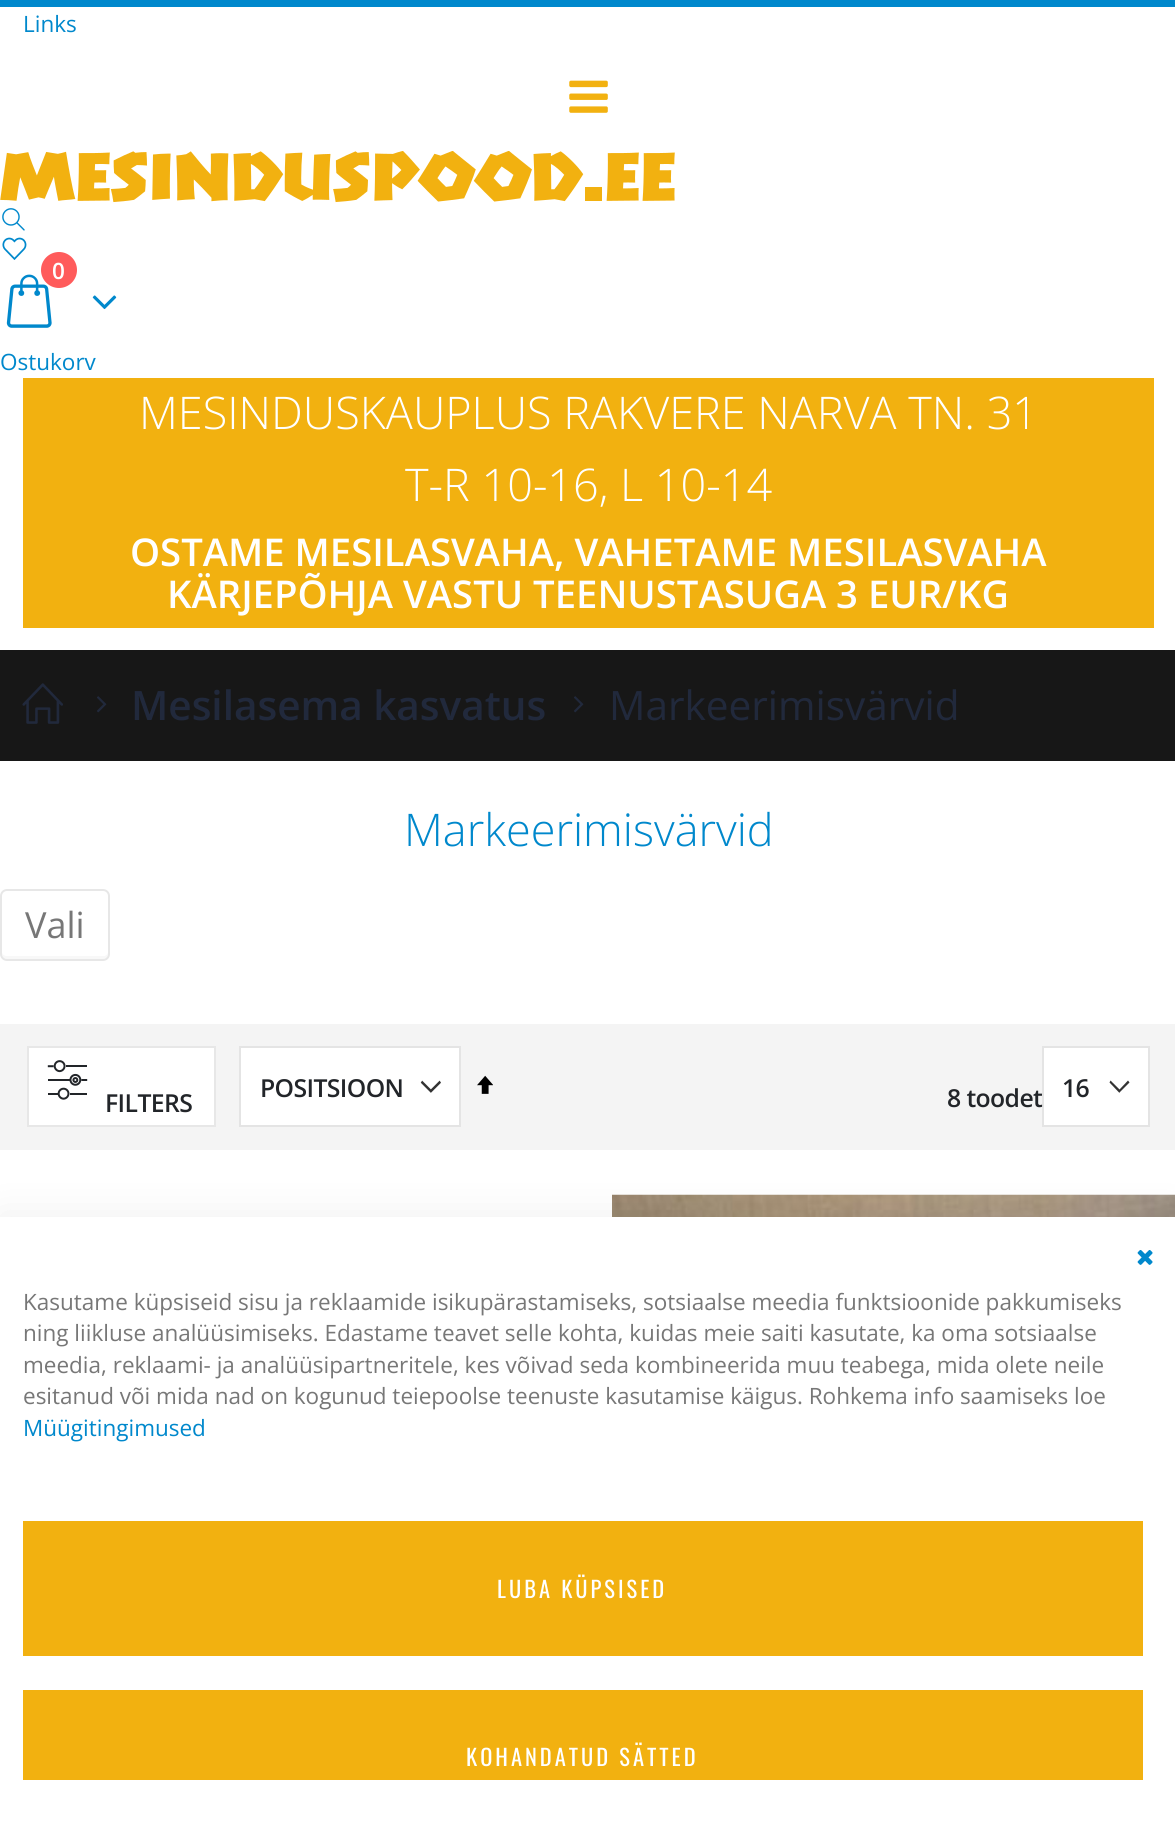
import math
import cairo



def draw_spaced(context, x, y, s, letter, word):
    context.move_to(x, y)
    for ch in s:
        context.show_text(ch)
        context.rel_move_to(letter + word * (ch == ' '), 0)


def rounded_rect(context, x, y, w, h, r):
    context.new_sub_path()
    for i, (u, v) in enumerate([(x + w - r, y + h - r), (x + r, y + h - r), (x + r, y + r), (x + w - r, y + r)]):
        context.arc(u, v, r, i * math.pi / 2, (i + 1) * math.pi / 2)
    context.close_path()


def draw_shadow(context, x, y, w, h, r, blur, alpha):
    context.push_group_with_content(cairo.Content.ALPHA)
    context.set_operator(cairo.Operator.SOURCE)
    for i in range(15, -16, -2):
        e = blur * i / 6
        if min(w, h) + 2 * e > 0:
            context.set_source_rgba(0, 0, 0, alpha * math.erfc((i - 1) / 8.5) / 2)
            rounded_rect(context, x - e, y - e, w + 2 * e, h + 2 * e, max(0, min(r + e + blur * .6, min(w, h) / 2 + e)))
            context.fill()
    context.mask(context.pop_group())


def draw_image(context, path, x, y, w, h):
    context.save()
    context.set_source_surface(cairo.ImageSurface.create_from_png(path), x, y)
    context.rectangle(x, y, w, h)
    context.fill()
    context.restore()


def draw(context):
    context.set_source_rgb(1, 1, 1)
    context.paint()
    context.set_source_rgb(0, 136 / 255, 204 / 255)
    context.rectangle(0, 0, 1175, 7)
    context.fill()
    draw_image(context, "images/1.png", 569, 80, 39, 33)
    draw_image(context, "images/2.png", 0, 151, 675, 52)
    draw_image(context, "images/3.png", 2, 208, 23, 23)
    draw_image(context, "images/4.png", 2, 237, 25, 23)
    draw_image(context, "images/5.png", 6, 274, 46, 54)
    context.set_source_rgb(1, 91 / 255, 91 / 255)
    context.arc(59, 270, 18, 0, 2 * math.pi)
    context.fill()
    draw_image(context, "images/6.png", 92, 295, 25, 15)
    context.set_source_rgb(242 / 255, 177 / 255, 16 / 255)
    context.rectangle(23, 378, 1131, 250)
    context.fill()
    context.set_source_rgb(23 / 255, 23 / 255, 23 / 255)
    context.rectangle(0, 650, 1175, 111)
    context.fill()
    draw_image(context, "images/7.png", 22, 683, 41, 41)
    draw_image(context, "images/8.png", 97, 696, 10, 17)
    draw_image(context, "images/8.png", 574, 696, 10, 17)
    context.set_source_rgb(248 / 255, 248 / 255, 248 / 255)
    context.new_path()
    context.move_to(2, 952)
    context.line_to(2, 954)
    context.curve_to(2, 957, 4, 959, 7, 959)
    context.line_to(103, 959)
    context.curve_to(106, 959, 108, 957, 108, 954)
    context.line_to(108, 952)
    context.curve_to(108, 954, 106, 956, 104, 956)
    context.line_to(7, 956)
    context.curve_to(4, 956, 2, 954, 2, 952)
    context.close_path()
    context.fill()
    rounded_rect(context, 1, 890, 108, 70, 6)
    context.set_source_rgb(231 / 255, 231 / 255, 231 / 255)
    context.stroke()
    context.set_source_rgb(244 / 255, 244 / 255, 244 / 255)
    context.rectangle(0, 1024, 1175, 126)
    context.fill()
    context.set_source_rgb(1, 1, 1)
    context.rectangle(28, 1047, 187, 79)
    context.fill_preserve()
    context.set_source_rgb(231 / 255, 231 / 255, 231 / 255)
    context.stroke()
    draw_image(context, "images/9.png", 47, 1060, 41, 40)
    context.set_source_rgb(1, 1, 1)
    context.rectangle(241, 1048, 218, 77)
    context.fill()
    draw_image(context, "images/10.png", 420, 1080, 21, 13)
    context.rectangle(240, 1047, 220, 79)
    context.set_source_rgb(228 / 255, 228 / 255, 228 / 255)
    context.stroke()
    draw_image(context, "images/11.png", 477, 1075, 16, 19)
    context.set_source_rgb(1, 1, 1)
    context.rectangle(1044, 1048, 104, 77)
    context.fill()
    context.set_source_rgb(51 / 255, 51 / 255, 51 / 255)
    context.set_fill_rule(cairo.FillRule.EVEN_ODD)
    context.new_path()
    context.move_to(1119.5, 1092.5)
    context.line_to(1129.5, 1082.5)
    context.line_to(1128, 1080.5)
    context.line_to(1119.5, 1089.5)
    context.line_to(1110.5, 1080.5)
    context.line_to(1109.5, 1082.5)
    context.line_to(1119.5, 1093)
    context.close_path()
    context.fill()
    context.rectangle(1043, 1047, 106, 79)
    context.set_source_rgb(228 / 255, 228 / 255, 228 / 255)
    context.stroke()
    draw_image(context, "images/12.png", 612, 1194, 563, 23)
    context.set_source_rgb(0, 0, 0)
    draw_shadow(context, 0, 1213, 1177, 630, 0, 20, 0.06)
    context.set_source_rgb(1, 1, 1)
    context.rectangle(0, 1217, 1175, 629)
    context.fill()
    draw_image(context, "images/13.png", 1137, 1250, 16, 15)
    context.set_source_rgb(242 / 255, 177 / 255, 16 / 255)
    context.rectangle(23, 1521, 1120, 135)
    context.fill()
    context.rectangle(23, 1690, 1120, 90)
    context.fill()
    context.select_font_face("Open Sans")
    context.set_font_size(22.5)
    context.set_source_rgb(0, 136 / 255, 204 / 255)
    context.move_to(23, 32)
    context.show_text("Links")
    context.select_font_face("Open Sans SemiBold")
    context.set_source_rgb(1, 1, 1)
    context.move_to(52, 279)
    context.show_text("0")
    context.select_font_face("Open Sans")
    context.set_source_rgb(0, 136 / 255, 204 / 255)
    context.move_to(0, 370)
    context.show_text("Ostukorv")
    context.select_font_face("Open Sans Light")
    context.set_font_size(45)
    context.set_source_rgb(1, 1, 1)
    context.move_to(139, 429)
    context.show_text("MESINDUSKAUPLUS RAKVERE NARVA TN. 31")
    context.move_to(405, 501)
    context.show_text("T-R 10-16, L 10-14")
    context.select_font_face("Open Sans SemiBold")
    context.set_font_size(38.25)
    context.move_to(130, 566)
    context.show_text("OSTAME MESILASVAHA, VAHETAME MESILASVAHA")
    context.move_to(167, 608)
    context.show_text("KÄRJEPÕHJA VASTU TEENUSTASUGA 3 EUR/KG")
    context.set_font_size(40.5)
    context.set_source_rgb(33 / 255, 41 / 255, 60 / 255)
    context.move_to(131, 720)
    context.show_text("Mesilasema kasvatus")
    context.select_font_face("Open Sans")
    context.move_to(609, 720)
    context.show_text("Markeerimisvärvid")
    context.select_font_face("Open Sans Light")
    context.set_font_size(45)
    context.set_source_rgb(0, 136 / 255, 204 / 255)
    context.move_to(404, 846)
    context.show_text("Markeerimisvärvid")
    context.select_font_face("Open Sans")
    context.set_font_size(36)
    context.set_source_rgb(119 / 255, 119 / 255, 119 / 255)
    context.move_to(25, 938)
    context.show_text("Vali")
    context.select_font_face("Open Sans SemiBold")
    context.set_font_size(24.75)
    context.set_source_rgb(34 / 255, 37 / 255, 41 / 255)
    draw_spaced(context, 105, 1112, "FILTERS", -0.6, 0)
    draw_spaced(context, 260, 1097, "POSITSIOON", -0.6, 0)
    draw_spaced(context, 947, 1107, "8 toodet", -0.6, 0)
    draw_spaced(context, 1062, 1097, "16", -0.6, 0)
    context.select_font_face("Open Sans")
    context.set_font_size(22.5)
    context.set_source_rgb(119 / 255, 119 / 255, 119 / 255)
    context.move_to(23, 1310)
    context.show_text("Kasutame küpsiseid sisu ja reklaamide isikupärastamiseks, sotsiaalse meedia funktsioonide pakkumiseks")
    context.move_to(23, 1341)
    context.show_text("ning liikluse analüüsimiseks. Edastame teavet selle kohta, kuidas meie saiti kasutate, ka oma sotsiaalse")
    context.move_to(23, 1373)
    context.show_text("meedia, reklaami- ja analüüsipartneritele, kes võivad seda kombineerida muu teabega, mida olete neile")
    context.move_to(23, 1404)
    context.show_text("esitanud või mida nad on kogunud teiepoolse teenuste kasutamise käigus. Rohkema info saamiseks loe")
    context.set_source_rgb(0, 136 / 255, 204 / 255)
    context.move_to(23, 1436)
    context.show_text("Müügitingimused")
    context.select_font_face("Oswald")
    context.set_source_rgb(1, 1, 1)
    draw_spaced(context, 497, 1598, "LUBA KÜPSISED", 3, 0)
    draw_spaced(context, 466, 1766, "KOHANDATUD SÄTTED", 3, 0)


surface = cairo.ImageSurface(cairo.Format.RGB24, 1175, 1846)
context = cairo.Context(surface)
options = cairo.FontOptions()
options.set_hint_metrics(cairo.HintMetrics.OFF)
options.set_hint_style(cairo.HintStyle.NONE)
context.set_font_options(options)
context.set_miter_limit(4)
draw(context)
surface.write_to_png("out.png")
